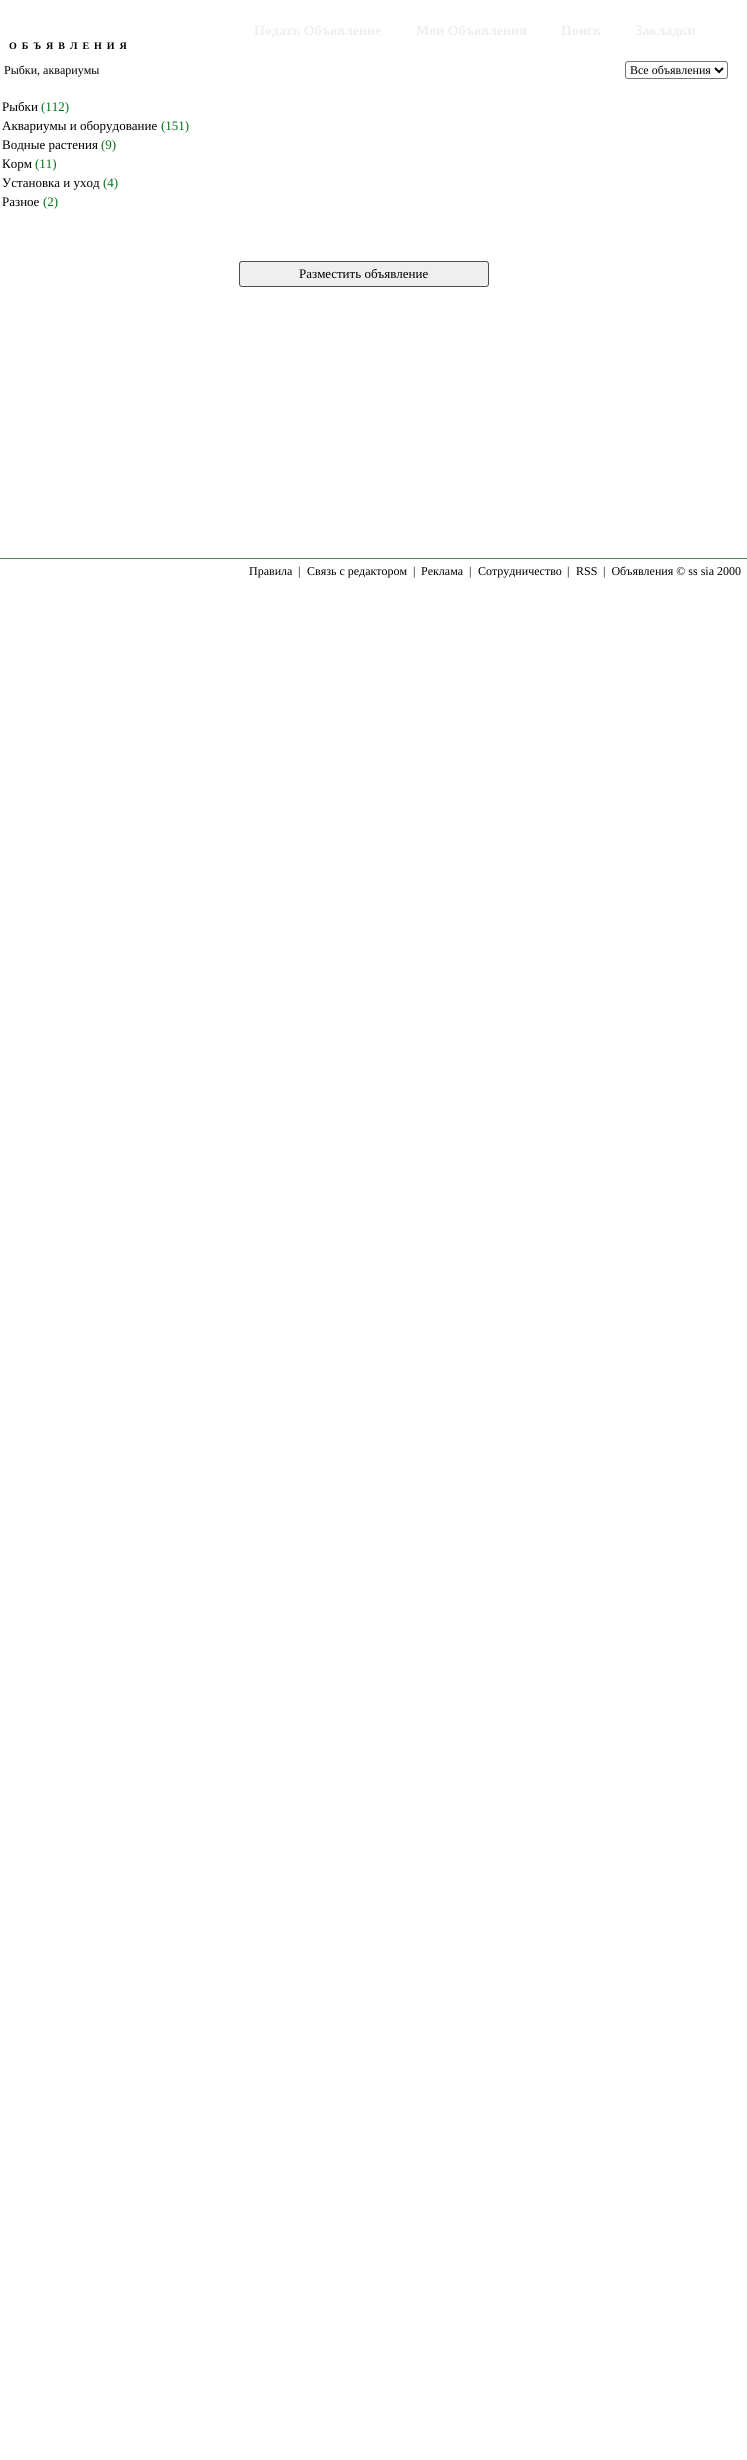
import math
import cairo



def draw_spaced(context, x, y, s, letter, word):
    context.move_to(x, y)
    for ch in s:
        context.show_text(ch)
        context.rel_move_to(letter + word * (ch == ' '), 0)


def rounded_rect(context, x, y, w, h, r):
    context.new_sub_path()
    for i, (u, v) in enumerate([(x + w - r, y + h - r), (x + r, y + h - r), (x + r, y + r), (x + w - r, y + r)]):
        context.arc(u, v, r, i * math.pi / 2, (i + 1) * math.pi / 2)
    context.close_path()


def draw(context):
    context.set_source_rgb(1, 1, 1)
    context.paint()
    rounded_rect(context, 625.5, 61.5, 102, 17, 2.5)
    context.set_source_rgb(118 / 255, 118 / 255, 118 / 255)
    context.set_line_width(1)
    context.stroke()
    context.new_path()
    context.move_to(715, 68)
    context.line_to(719, 72)
    context.line_to(723, 68)
    context.set_source_rgb(0, 0, 0)
    context.set_line_width(2)
    context.stroke()
    context.set_source_rgb(239 / 255, 239 / 255, 239 / 255)
    rounded_rect(context, 239.5, 261.5, 249, 25, 2.5)
    context.fill_preserve()
    context.set_source_rgb(79 / 255, 79 / 255, 79 / 255)
    context.set_line_width(1)
    context.stroke()
    context.set_source_rgb(65 / 255, 140 / 255, 78 / 255)
    context.rectangle(0, 558, 747, 1)
    context.fill()
    context.select_font_face("Liberation Serif", cairo.FontSlant.NORMAL, cairo.FontWeight.BOLD)
    context.set_font_size(14)
    context.set_source_rgb(238 / 255, 238 / 255, 238 / 255)
    context.move_to(254, 35)
    context.show_text("Подать Объявление")
    context.move_to(416, 35)
    context.show_text("Мои Объявления")
    context.move_to(561, 35)
    context.show_text("Поиск")
    context.move_to(635, 35)
    context.show_text("Закладки")
    context.set_font_size(10)
    context.set_source_rgb(0, 0, 0)
    draw_spaced(context, 9, 49, "ОБЪЯВЛЕНИЯ", 5, 0)
    context.select_font_face("Liberation Serif")
    context.set_font_size(12)
    context.move_to(4, 74)
    context.show_text("Рыбки, аквариумы")
    context.move_to(630, 74)
    context.show_text("Все объявления")
    context.set_font_size(13)
    context.move_to(2, 111)
    context.show_text("Рыбки")
    context.set_source_rgb(2 / 255, 115 / 255, 21 / 255)
    context.move_to(41, 111)
    context.show_text("(112)")
    context.set_source_rgb(0, 0, 0)
    context.move_to(2, 130)
    context.show_text("Аквариумы и оборудование")
    context.set_source_rgb(2 / 255, 115 / 255, 21 / 255)
    context.move_to(161, 130)
    context.show_text("(151)")
    context.set_source_rgb(0, 0, 0)
    context.move_to(2, 149)
    context.show_text("Водные растения")
    context.set_source_rgb(2 / 255, 115 / 255, 21 / 255)
    context.move_to(101, 149)
    context.show_text("(9)")
    context.set_source_rgb(0, 0, 0)
    context.move_to(2, 168)
    context.show_text("Корм")
    context.set_source_rgb(2 / 255, 115 / 255, 21 / 255)
    context.move_to(35, 168)
    context.show_text("(11)")
    context.set_source_rgb(0, 0, 0)
    context.move_to(2, 187)
    context.show_text("Установка и уход")
    context.set_source_rgb(2 / 255, 115 / 255, 21 / 255)
    context.move_to(103, 187)
    context.show_text("(4)")
    context.set_source_rgb(0, 0, 0)
    context.move_to(2, 206)
    context.show_text("Разное")
    context.set_source_rgb(2 / 255, 115 / 255, 21 / 255)
    context.move_to(43, 206)
    context.show_text("(2)")
    context.set_source_rgb(0, 0, 0)
    context.move_to(299, 278)
    context.show_text("Разместить объявление")
    context.set_font_size(12)
    context.move_to(249, 575)
    context.show_text("Правила")
    context.move_to(298, 575)
    context.show_text("|")
    context.move_to(307, 575)
    context.show_text("Связь с редактором")
    context.move_to(413, 575)
    context.show_text("|")
    context.move_to(421, 575)
    context.show_text("Реклама")
    context.move_to(469, 575)
    context.show_text("|")
    context.move_to(478, 575)
    context.show_text("Сотрудничество")
    context.move_to(567, 575)
    context.show_text("|")
    context.move_to(576, 575)
    context.show_text("RSS")
    context.move_to(603, 575)
    context.show_text("|  Объявления © ss sia 2000")


surface = cairo.ImageSurface(cairo.Format.RGB24, 747, 2460)
context = cairo.Context(surface)
options = cairo.FontOptions()
options.set_hint_metrics(cairo.HintMetrics.OFF)
options.set_hint_style(cairo.HintStyle.NONE)
context.set_font_options(options)
context.set_miter_limit(4)
draw(context)
surface.write_to_png("out.png")
